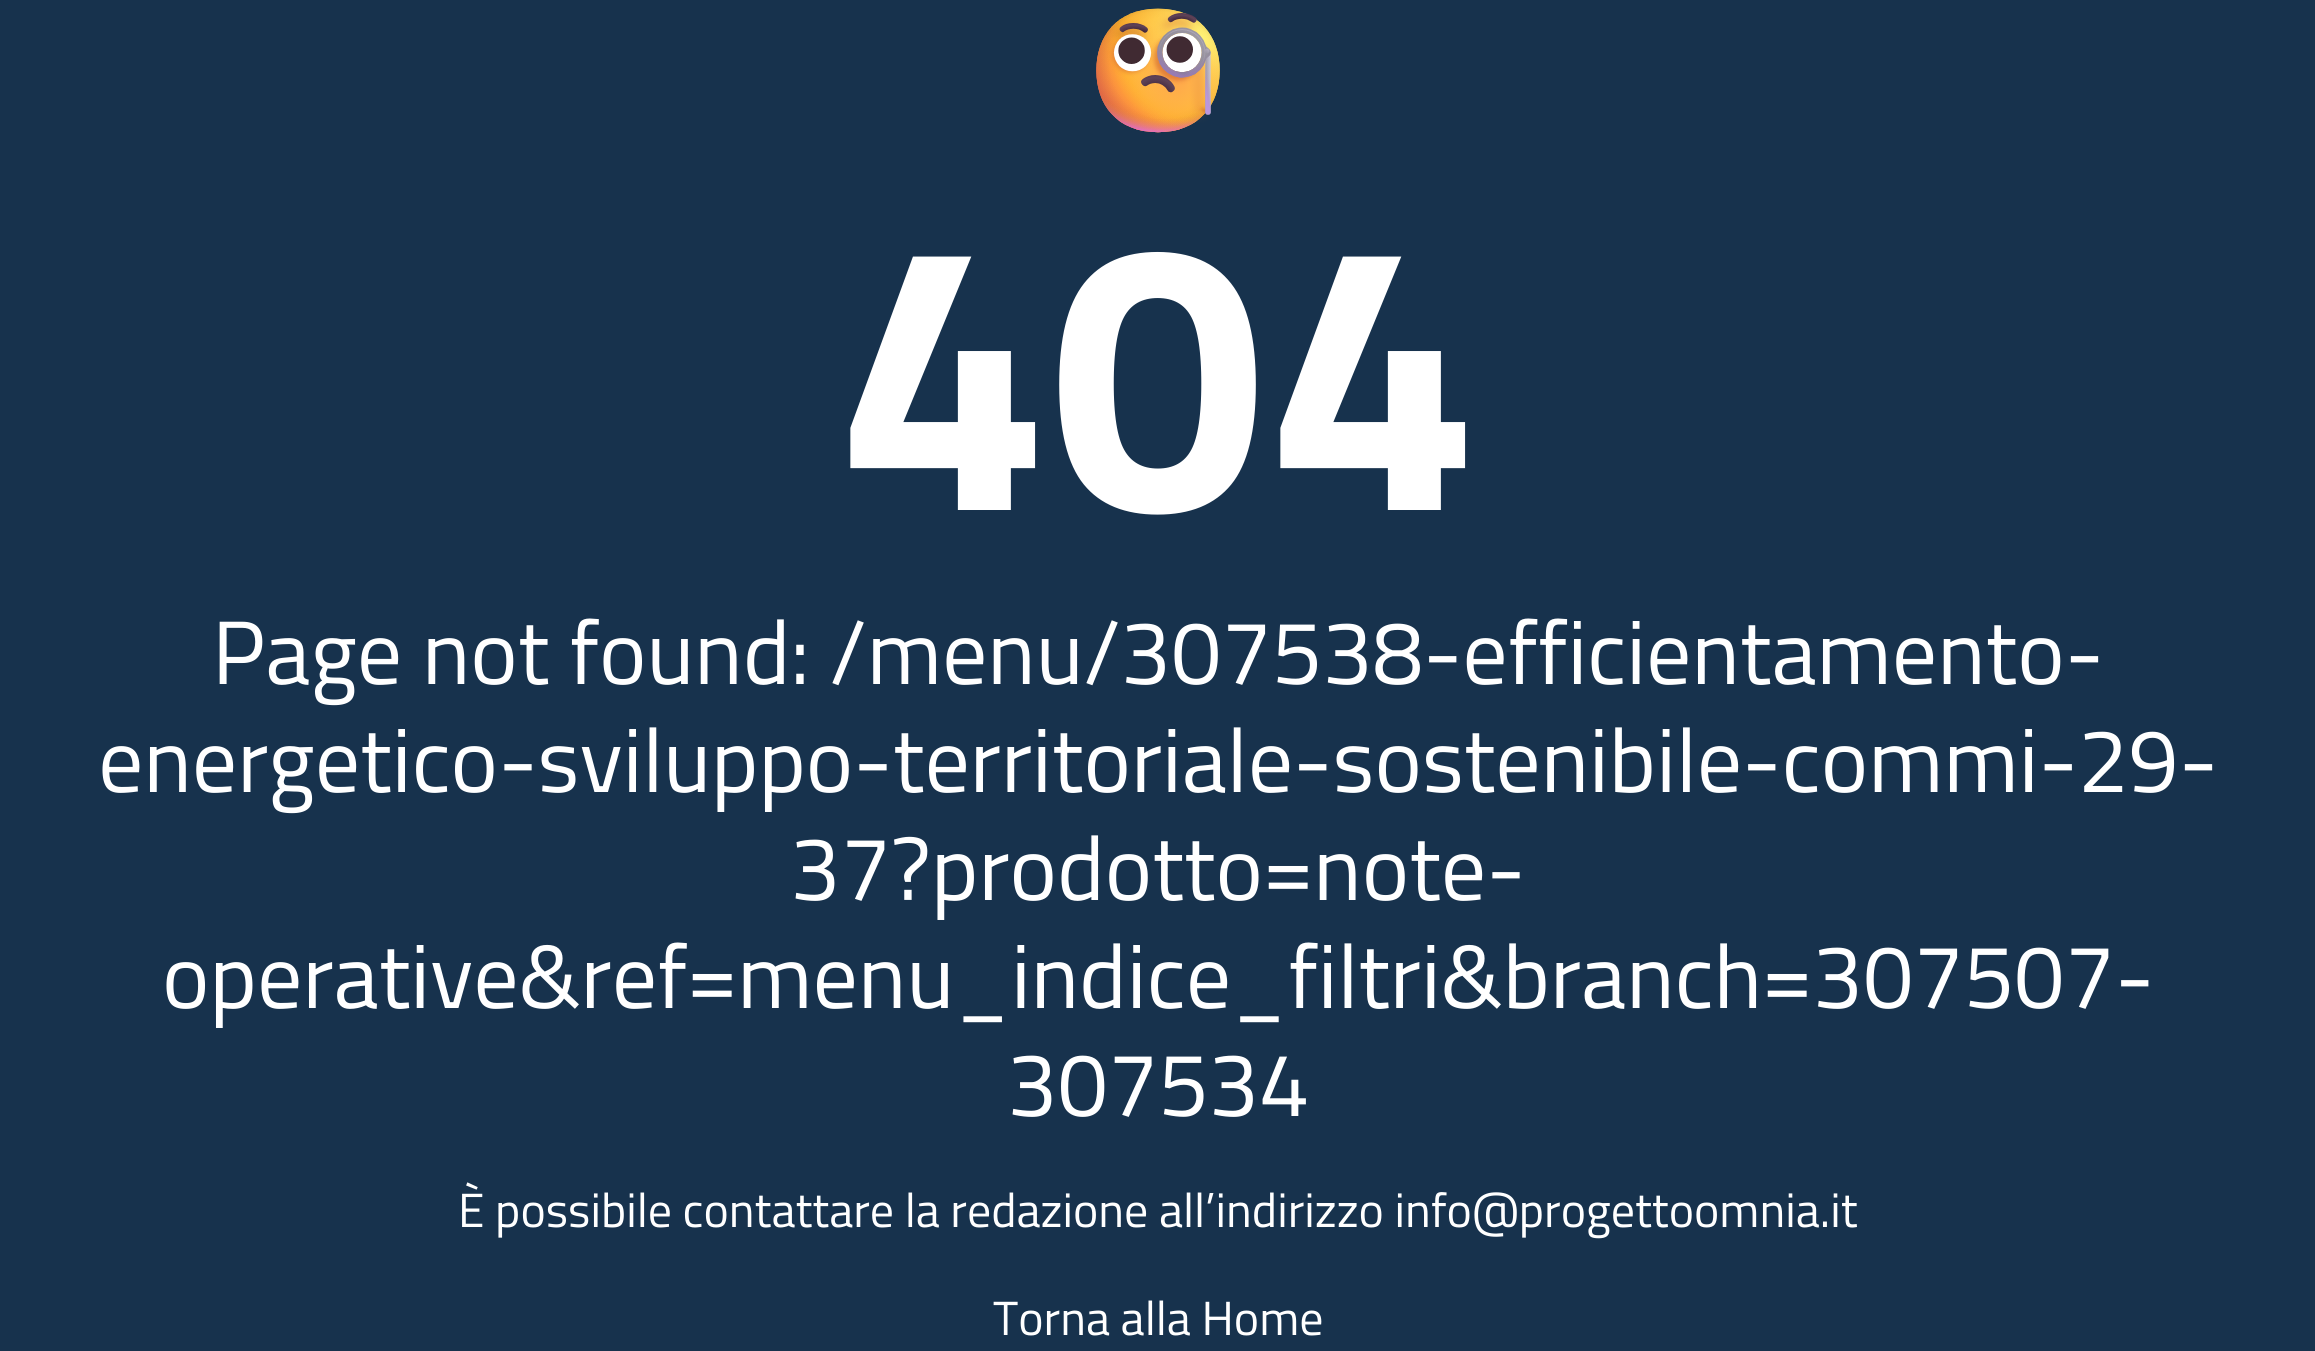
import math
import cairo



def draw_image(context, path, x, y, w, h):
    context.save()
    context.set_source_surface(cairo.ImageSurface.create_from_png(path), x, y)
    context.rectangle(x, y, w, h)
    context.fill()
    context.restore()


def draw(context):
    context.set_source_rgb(23 / 255, 50 / 255, 77 / 255)
    context.paint()
    draw_image(context, "images/1.png", 1096, 8, 124, 125)
    context.select_font_face("Titillium Web", cairo.FontSlant.NORMAL, cairo.FontWeight.BOLD)
    context.set_font_size(384)
    context.set_source_rgb(1, 1, 1)
    context.move_to(835, 510)
    context.show_text("404")
    context.select_font_face("Titillium Web")
    context.set_font_size(90)
    context.move_to(212, 684)
    context.show_text("Page not found: /menu/307538-efficientamento-")
    context.move_to(98, 792)
    context.show_text("energetico-sviluppo-territoriale-sostenibile-commi-29-")
    context.move_to(790, 900)
    context.show_text("37?prodotto=note-")
    context.move_to(162, 1008)
    context.show_text("operative&ref=menu_indice_filtri&branch=307507-")
    context.move_to(1007, 1116)
    context.show_text("307534")
    context.set_font_size(48)
    context.move_to(458, 1227)
    context.show_text("È possibile contattare la redazione all’indirizzo info@progettoomnia.it")
    context.move_to(993, 1335)
    context.show_text("Torna alla Home")


surface = cairo.ImageSurface(cairo.Format.RGB24, 2315, 1351)
context = cairo.Context(surface)
options = cairo.FontOptions()
options.set_hint_metrics(cairo.HintMetrics.OFF)
options.set_hint_style(cairo.HintStyle.NONE)
context.set_font_options(options)
context.set_miter_limit(4)
draw(context)
surface.write_to_png("out.png")
